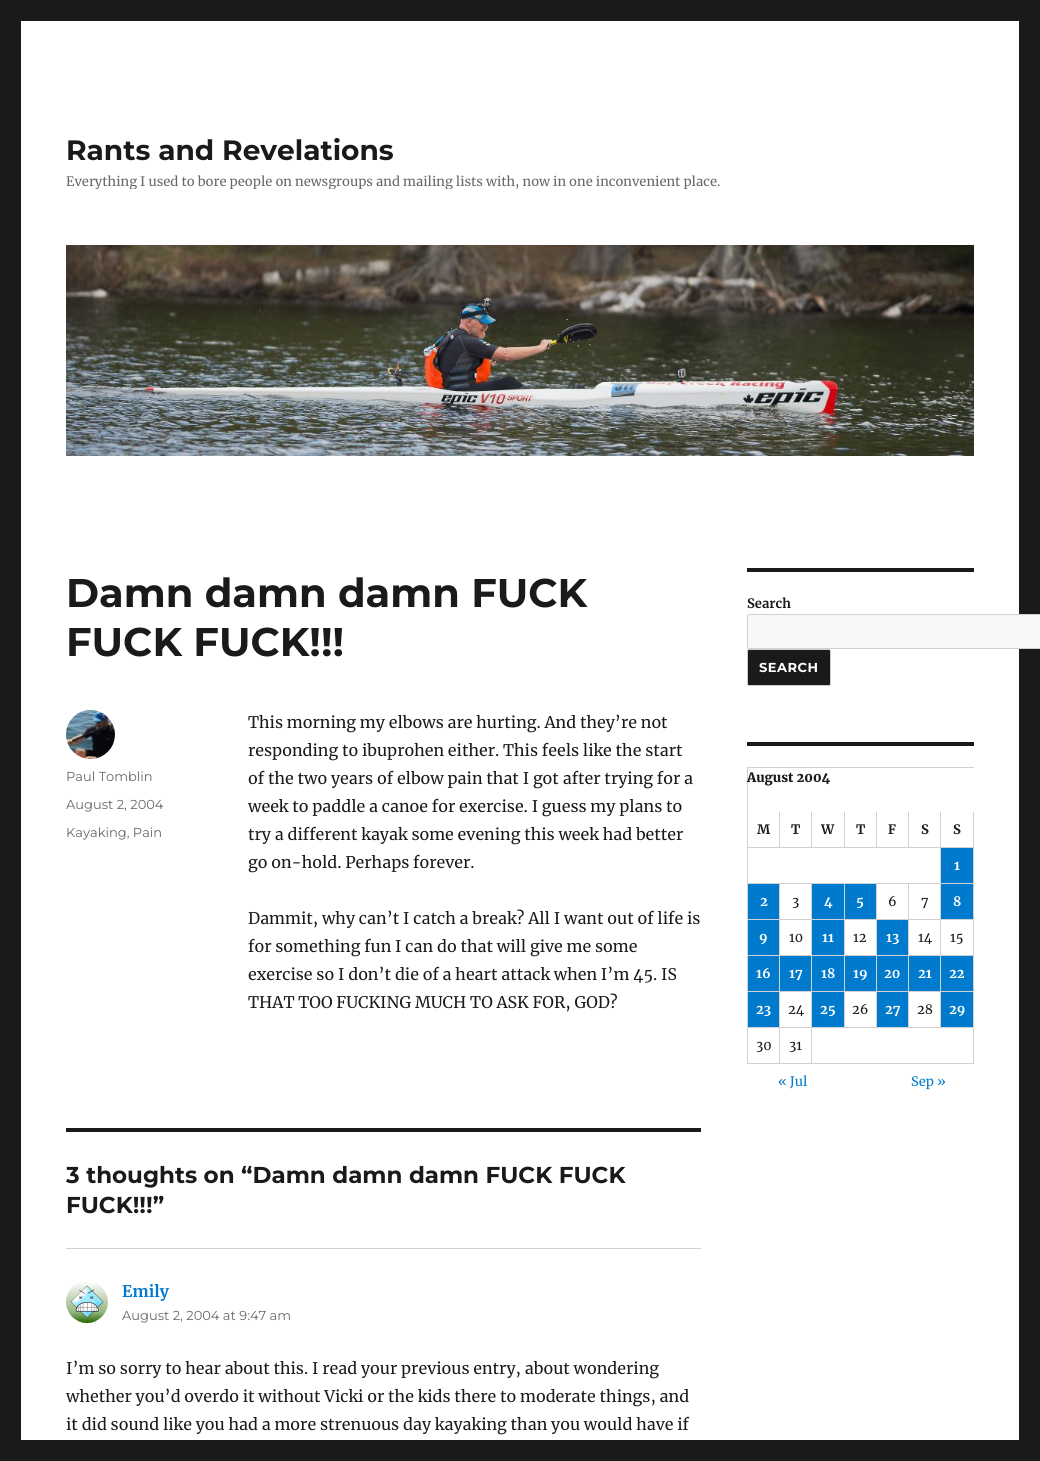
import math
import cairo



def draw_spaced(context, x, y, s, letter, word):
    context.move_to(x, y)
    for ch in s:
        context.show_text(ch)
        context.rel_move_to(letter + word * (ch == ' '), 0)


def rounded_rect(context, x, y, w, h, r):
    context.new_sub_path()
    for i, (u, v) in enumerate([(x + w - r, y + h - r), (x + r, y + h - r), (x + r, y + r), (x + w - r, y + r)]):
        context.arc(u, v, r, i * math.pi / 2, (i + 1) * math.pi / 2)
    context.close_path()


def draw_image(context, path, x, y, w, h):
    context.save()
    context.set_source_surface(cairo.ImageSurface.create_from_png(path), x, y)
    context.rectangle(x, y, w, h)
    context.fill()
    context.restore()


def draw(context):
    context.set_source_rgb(26 / 255, 26 / 255, 26 / 255)
    context.paint()
    context.set_source_rgb(1, 1, 1)
    context.rectangle(21, 21, 998, 1419)
    context.fill()
    draw_image(context, "images/1.png", 66, 245, 908, 211)
    draw_image(context, "images/2.png", 66, 710, 49, 49)
    context.set_source_rgb(26 / 255, 26 / 255, 26 / 255)
    context.rectangle(66, 1128, 635, 4)
    context.fill()
    context.set_source_rgb(209 / 255, 209 / 255, 209 / 255)
    context.rectangle(66, 1248, 635, 1)
    context.fill()
    draw_image(context, "images/3.png", 66, 1282, 42, 41)
    context.set_source_rgb(26 / 255, 26 / 255, 26 / 255)
    context.rectangle(747, 568, 227, 4)
    context.fill()
    context.set_source_rgb(247 / 255, 247 / 255, 247 / 255)
    rounded_rect(context, 747.5, 614.5, 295, 34, 1.5)
    context.fill_preserve()
    context.set_source_rgb(209 / 255, 209 / 255, 209 / 255)
    context.set_line_width(1)
    context.stroke()
    context.set_source_rgb(26 / 255, 26 / 255, 26 / 255)
    rounded_rect(context, 747.5, 649.5, 83, 36, 1.5)
    context.fill_preserve()
    context.set_source_rgb(204 / 255, 204 / 255, 204 / 255)
    context.stroke()
    context.set_source_rgb(26 / 255, 26 / 255, 26 / 255)
    context.rectangle(747, 742, 227, 4)
    context.fill()
    context.set_source_rgb(209 / 255, 209 / 255, 209 / 255)
    context.rectangle(747, 767, 227, 1)
    context.fill()
    context.rectangle(747, 767, 1, 297)
    context.fill()
    context.rectangle(779, 812, 1, 36)
    context.fill()
    context.rectangle(748, 847, 32, 1)
    context.fill()
    context.rectangle(811, 812, 1, 36)
    context.fill()
    context.rectangle(780, 847, 32, 1)
    context.fill()
    context.rectangle(844, 812, 1, 36)
    context.fill()
    context.rectangle(812, 847, 33, 1)
    context.fill()
    context.rectangle(876, 812, 1, 36)
    context.fill()
    context.rectangle(845, 847, 32, 1)
    context.fill()
    context.rectangle(908, 812, 1, 36)
    context.fill()
    context.rectangle(877, 847, 32, 1)
    context.fill()
    context.rectangle(940, 812, 1, 216)
    context.fill()
    context.rectangle(909, 847, 32, 1)
    context.fill()
    context.rectangle(973, 812, 1, 252)
    context.fill()
    context.rectangle(941, 847, 33, 1)
    context.fill()
    context.set_source_rgb(0, 122 / 255, 204 / 255)
    context.rectangle(941, 848, 32, 35)
    context.fill()
    context.set_source_rgb(209 / 255, 209 / 255, 209 / 255)
    context.rectangle(748, 883, 226, 1)
    context.fill()
    context.rectangle(779, 884, 1, 180)
    context.fill()
    context.rectangle(748, 919, 32, 1)
    context.fill()
    context.set_source_rgb(0, 122 / 255, 204 / 255)
    context.rectangle(748, 884, 31, 35)
    context.fill()
    context.set_source_rgb(209 / 255, 209 / 255, 209 / 255)
    context.rectangle(811, 884, 1, 180)
    context.fill()
    context.rectangle(780, 919, 32, 1)
    context.fill()
    context.rectangle(844, 884, 1, 144)
    context.fill()
    context.rectangle(812, 919, 33, 1)
    context.fill()
    context.set_source_rgb(0, 122 / 255, 204 / 255)
    context.rectangle(812, 884, 32, 35)
    context.fill()
    context.set_source_rgb(209 / 255, 209 / 255, 209 / 255)
    context.rectangle(876, 884, 1, 144)
    context.fill()
    context.rectangle(845, 919, 32, 1)
    context.fill()
    context.set_source_rgb(0, 122 / 255, 204 / 255)
    context.rectangle(845, 884, 31, 35)
    context.fill()
    context.set_source_rgb(209 / 255, 209 / 255, 209 / 255)
    context.rectangle(908, 884, 1, 144)
    context.fill()
    context.rectangle(877, 919, 97, 1)
    context.fill()
    context.set_source_rgb(0, 122 / 255, 204 / 255)
    context.rectangle(941, 884, 32, 35)
    context.fill()
    context.set_source_rgb(209 / 255, 209 / 255, 209 / 255)
    context.rectangle(748, 955, 226, 1)
    context.fill()
    context.set_source_rgb(0, 122 / 255, 204 / 255)
    context.rectangle(748, 920, 31, 35)
    context.fill()
    context.rectangle(812, 920, 32, 35)
    context.fill()
    context.rectangle(877, 920, 31, 35)
    context.fill()
    context.set_source_rgb(209 / 255, 209 / 255, 209 / 255)
    context.rectangle(748, 991, 226, 1)
    context.fill()
    context.set_source_rgb(0, 122 / 255, 204 / 255)
    context.rectangle(748, 956, 31, 35)
    context.fill()
    context.rectangle(780, 956, 31, 35)
    context.fill()
    context.rectangle(812, 956, 32, 35)
    context.fill()
    context.rectangle(845, 956, 31, 35)
    context.fill()
    context.rectangle(877, 956, 31, 35)
    context.fill()
    context.rectangle(909, 956, 31, 35)
    context.fill()
    context.rectangle(941, 956, 32, 35)
    context.fill()
    context.set_source_rgb(209 / 255, 209 / 255, 209 / 255)
    context.rectangle(748, 1027, 226, 1)
    context.fill()
    context.set_source_rgb(0, 122 / 255, 204 / 255)
    context.rectangle(748, 992, 31, 35)
    context.fill()
    context.rectangle(812, 992, 32, 35)
    context.fill()
    context.rectangle(877, 992, 31, 35)
    context.fill()
    context.rectangle(941, 992, 32, 35)
    context.fill()
    context.set_source_rgb(209 / 255, 209 / 255, 209 / 255)
    context.rectangle(748, 1063, 226, 1)
    context.fill()
    context.select_font_face("Montserrat Thin")
    context.set_font_size(28)
    context.set_source_rgb(26 / 255, 26 / 255, 26 / 255)
    context.move_to(66, 160)
    context.show_text("Rants and Revelations")
    context.save()
    context.rectangle(66, 133, 655, 56)
    context.clip()
    context.select_font_face("Merriweather")
    context.set_font_size(13)
    context.set_source_rgb(104 / 255, 104 / 255, 104 / 255)
    context.move_to(66, 186)
    context.show_text("Everything I used to bore people on newsgroups and mailing lists with, now in one inconvenient place.")
    context.restore()
    context.set_font_size(40)
    context.move_to(66, 607)
    context.show_text("Damn damn damn FUCK")
    context.move_to(66, 656)
    context.show_text("FUCK FUCK!!!")
    context.select_font_face("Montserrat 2 Thin")
    context.set_font_size(13)
    context.set_source_rgb(104 / 255, 104 / 255, 104 / 255)
    context.move_to(66, 781)
    context.show_text("Paul Tomblin")
    context.move_to(66, 809)
    context.show_text("August 2, 2004")
    context.move_to(66, 837)
    context.show_text("Kayaking, Pain")
    context.select_font_face("Merriweather")
    context.set_font_size(16)
    context.set_source_rgb(26 / 255, 26 / 255, 26 / 255)
    context.move_to(248, 728)
    context.show_text("This morning my elbows are hurting. And they’re not")
    context.move_to(248, 756)
    context.show_text("responding to ibuprohen either. This feels like the start")
    context.move_to(248, 784)
    context.show_text("of the two years of elbow pain that I got after trying for a")
    context.move_to(248, 812)
    context.show_text("week to paddle a canoe for exercise. I guess my plans to")
    context.move_to(248, 840)
    context.show_text("try a different kayak some evening this week had better")
    context.move_to(248, 868)
    context.show_text("go on-hold. Perhaps forever.")
    context.move_to(248, 924)
    context.show_text("Dammit, why can’t I catch a break? All I want out of life is")
    context.move_to(248, 952)
    context.show_text("for something fun I can do that will give me some")
    context.move_to(248, 980)
    context.show_text("exercise so I don’t die of a heart attack when I’m 45. IS")
    context.move_to(248, 1008)
    context.show_text("THAT TOO FUCKING MUCH TO ASK FOR, GOD?")
    context.select_font_face("Montserrat Thin")
    context.set_font_size(23)
    context.move_to(66, 1183)
    context.show_text("3 thoughts on “Damn damn damn FUCK FUCK")
    context.move_to(66, 1213)
    context.show_text("FUCK!!!”")
    context.select_font_face("Merriweather", cairo.FontSlant.NORMAL, cairo.FontWeight.BOLD)
    context.set_font_size(16)
    context.set_source_rgb(0, 122 / 255, 204 / 255)
    context.move_to(122, 1297)
    context.show_text("Emily")
    context.select_font_face("Montserrat 2 Thin")
    context.set_font_size(13)
    context.set_source_rgb(104 / 255, 104 / 255, 104 / 255)
    context.move_to(122, 1320)
    context.show_text("August 2, 2004 at 9:47 am")
    context.select_font_face("Merriweather")
    context.set_font_size(16)
    context.set_source_rgb(26 / 255, 26 / 255, 26 / 255)
    context.move_to(66, 1374)
    context.show_text("I’m so sorry to hear about this. I read your previous entry, about wondering")
    context.move_to(66, 1402)
    context.show_text("whether you’d overdo it without Vicki or the kids there to moderate things, and")
    context.move_to(66, 1430)
    context.show_text("it did sound like you had a more strenuous day kayaking than you would have if")
    context.select_font_face("Merriweather", cairo.FontSlant.NORMAL, cairo.FontWeight.BOLD)
    context.set_font_size(13)
    context.move_to(747, 608)
    context.show_text("Search")
    context.select_font_face("Montserrat Thin")
    context.set_source_rgb(1, 1, 1)
    draw_spaced(context, 759, 672, "SEARCH", 0.5, 0)
    context.select_font_face("Merriweather Black")
    context.set_source_rgb(26 / 255, 26 / 255, 26 / 255)
    context.move_to(747, 782)
    context.show_text("August 2004")
    context.select_font_face("Merriweather", cairo.FontSlant.NORMAL, cairo.FontWeight.BOLD)
    context.move_to(757, 834)
    context.show_text("M")
    context.move_to(791, 834)
    context.show_text("T")
    context.move_to(821, 834)
    context.show_text("W")
    context.move_to(856, 834)
    context.show_text("T")
    context.move_to(888, 834)
    context.show_text("F")
    context.move_to(921, 834)
    context.show_text("S")
    context.move_to(953, 834)
    context.show_text("S")
    context.set_source_rgb(1, 1, 1)
    context.move_to(954, 870)
    context.show_text("1")
    context.move_to(760, 906)
    context.show_text("2")
    context.select_font_face("Merriweather")
    context.set_source_rgb(26 / 255, 26 / 255, 26 / 255)
    context.move_to(792, 906)
    context.show_text("3")
    context.select_font_face("Merriweather", cairo.FontSlant.NORMAL, cairo.FontWeight.BOLD)
    context.set_source_rgb(1, 1, 1)
    context.move_to(824, 906)
    context.show_text("4")
    context.move_to(856, 906)
    context.show_text("5")
    context.select_font_face("Merriweather")
    context.set_source_rgb(26 / 255, 26 / 255, 26 / 255)
    context.move_to(888, 906)
    context.show_text("6")
    context.move_to(921, 906)
    context.show_text("7")
    context.select_font_face("Merriweather", cairo.FontSlant.NORMAL, cairo.FontWeight.BOLD)
    context.set_source_rgb(1, 1, 1)
    context.move_to(953, 906)
    context.show_text("8")
    context.move_to(759, 942)
    context.show_text("9")
    context.select_font_face("Merriweather")
    context.set_source_rgb(26 / 255, 26 / 255, 26 / 255)
    context.move_to(789, 942)
    context.show_text("10")
    context.select_font_face("Merriweather", cairo.FontSlant.NORMAL, cairo.FontWeight.BOLD)
    context.set_source_rgb(1, 1, 1)
    context.move_to(822, 942)
    context.show_text("11")
    context.select_font_face("Merriweather")
    context.set_source_rgb(26 / 255, 26 / 255, 26 / 255)
    context.move_to(853, 942)
    context.show_text("12")
    context.select_font_face("Merriweather", cairo.FontSlant.NORMAL, cairo.FontWeight.BOLD)
    context.set_source_rgb(1, 1, 1)
    context.move_to(886, 942)
    context.show_text("13")
    context.select_font_face("Merriweather")
    context.set_source_rgb(26 / 255, 26 / 255, 26 / 255)
    context.move_to(918, 942)
    context.show_text("14")
    context.move_to(950, 942)
    context.show_text("15")
    context.select_font_face("Merriweather", cairo.FontSlant.NORMAL, cairo.FontWeight.BOLD)
    context.set_source_rgb(1, 1, 1)
    context.move_to(756, 978)
    context.show_text("16")
    context.move_to(789, 978)
    context.show_text("17")
    context.move_to(821, 978)
    context.show_text("18")
    context.move_to(853, 978)
    context.show_text("19")
    context.move_to(884, 978)
    context.show_text("20")
    context.move_to(918, 978)
    context.show_text("21")
    context.move_to(949, 978)
    context.show_text("22")
    context.move_to(756, 1014)
    context.show_text("23")
    context.select_font_face("Merriweather")
    context.set_source_rgb(26 / 255, 26 / 255, 26 / 255)
    context.move_to(788, 1014)
    context.show_text("24")
    context.select_font_face("Merriweather", cairo.FontSlant.NORMAL, cairo.FontWeight.BOLD)
    context.set_source_rgb(1, 1, 1)
    context.move_to(820, 1014)
    context.show_text("25")
    context.select_font_face("Merriweather")
    context.set_source_rgb(26 / 255, 26 / 255, 26 / 255)
    context.move_to(852, 1014)
    context.show_text("26")
    context.select_font_face("Merriweather", cairo.FontSlant.NORMAL, cairo.FontWeight.BOLD)
    context.set_source_rgb(1, 1, 1)
    context.move_to(885, 1014)
    context.show_text("27")
    context.select_font_face("Merriweather")
    context.set_source_rgb(26 / 255, 26 / 255, 26 / 255)
    context.move_to(917, 1014)
    context.show_text("28")
    context.select_font_face("Merriweather", cairo.FontSlant.NORMAL, cairo.FontWeight.BOLD)
    context.set_source_rgb(1, 1, 1)
    context.move_to(949, 1014)
    context.show_text("29")
    context.select_font_face("Merriweather")
    context.set_source_rgb(26 / 255, 26 / 255, 26 / 255)
    context.move_to(756, 1050)
    context.show_text("30")
    context.move_to(789, 1050)
    context.show_text("31")
    context.set_source_rgb(0, 122 / 255, 204 / 255)
    context.move_to(778, 1086)
    context.show_text("« Jul")
    context.move_to(911, 1086)
    context.show_text("Sep »")


surface = cairo.ImageSurface(cairo.Format.RGB24, 1040, 1461)
context = cairo.Context(surface)
options = cairo.FontOptions()
options.set_hint_metrics(cairo.HintMetrics.OFF)
options.set_hint_style(cairo.HintStyle.NONE)
context.set_font_options(options)
context.set_miter_limit(4)
draw(context)
surface.write_to_png("out.png")
